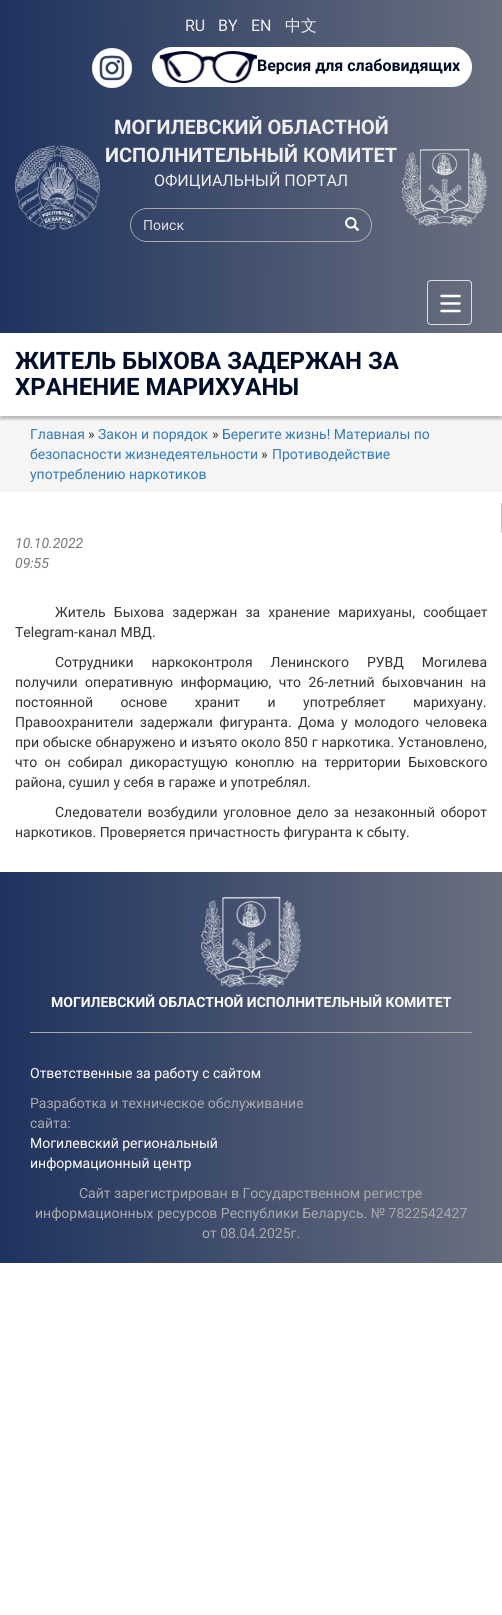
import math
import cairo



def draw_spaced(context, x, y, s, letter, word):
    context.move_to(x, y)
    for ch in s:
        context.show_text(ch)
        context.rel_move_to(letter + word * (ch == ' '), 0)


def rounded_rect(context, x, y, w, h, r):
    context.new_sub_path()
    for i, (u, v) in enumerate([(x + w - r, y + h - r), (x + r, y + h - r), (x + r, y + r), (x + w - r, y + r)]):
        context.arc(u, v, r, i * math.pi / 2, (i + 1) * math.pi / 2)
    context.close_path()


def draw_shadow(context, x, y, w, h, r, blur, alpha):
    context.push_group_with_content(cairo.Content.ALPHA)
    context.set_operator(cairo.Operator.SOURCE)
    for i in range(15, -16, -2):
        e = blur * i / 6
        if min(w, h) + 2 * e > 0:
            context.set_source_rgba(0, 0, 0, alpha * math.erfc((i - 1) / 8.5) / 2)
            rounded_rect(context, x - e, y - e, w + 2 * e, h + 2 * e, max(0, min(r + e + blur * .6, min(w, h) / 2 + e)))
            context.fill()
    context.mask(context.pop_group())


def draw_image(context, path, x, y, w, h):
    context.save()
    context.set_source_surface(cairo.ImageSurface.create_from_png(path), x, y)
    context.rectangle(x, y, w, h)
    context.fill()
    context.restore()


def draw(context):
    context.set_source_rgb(1, 1, 1)
    context.paint()
    gradient = cairo.LinearGradient(0, 57, 502, 56)
    gradient.add_color_stop_rgba(0, 31 / 255, 51 / 255, 95 / 255, 1)
    gradient.add_color_stop_rgba(1, 106 / 255, 112 / 255, 127 / 255, 1)
    context.set_source(gradient)
    context.rectangle(0, 0, 502, 113)
    context.fill()
    draw_image(context, "images/1.png", 92, 48, 40, 40)
    context.set_source_rgb(1, 1, 1)
    rounded_rect(context, 152, 47, 320, 40, 20)
    context.fill()
    draw_image(context, "images/2.png", 159, 51, 98, 32)
    gradient = cairo.LinearGradient(0, 193, 502, 192)
    gradient.add_color_stop_rgba(0, 31 / 255, 51 / 255, 95 / 255, 1)
    gradient.add_color_stop_rgba(1, 106 / 255, 112 / 255, 127 / 255, 1)
    context.set_source(gradient)
    context.rectangle(0, 113, 502, 159)
    context.fill()
    draw_image(context, "images/3.png", 15, 145, 85, 85)
    context.set_source_rgba(0, 0, 0, 0.07)
    context.new_path()
    context.move_to(147, 210)
    context.line_to(334, 210)
    context.line_to(334, 209)
    context.line_to(178, 209)
    context.curve_to(167, 209, 130, 202, 131, 225)
    context.curve_to(131, 217, 138, 210, 147, 210)
    context.close_path()
    context.fill()
    context.set_source_rgb(170 / 255, 170 / 255, 170 / 255)
    context.set_fill_rule(cairo.FillRule.EVEN_ODD)
    context.new_path()
    context.move_to(147, 208)
    context.line_to(334, 208)
    context.line_to(334, 242)
    context.line_to(147, 242)
    context.curve_to(138, 242, 130, 234, 130, 225)
    context.curve_to(130, 216, 138, 208, 147, 208)
    context.close_path()
    context.move_to(147, 209)
    context.line_to(334, 209)
    context.line_to(334, 241)
    context.line_to(147, 241)
    context.curve_to(138, 241, 131, 234, 131, 225)
    context.curve_to(131, 216, 138, 209, 147, 209)
    context.close_path()
    context.fill()
    context.new_path()
    context.move_to(333, 208)
    context.line_to(355, 208)
    context.curve_to(364.5, 208, 372, 215.5, 372, 225)
    context.curve_to(372, 234.5, 364.5, 242, 355, 242)
    context.line_to(333, 242)
    context.close_path()
    context.move_to(333, 209)
    context.line_to(355, 209)
    context.curve_to(364, 209, 371, 216, 371, 225)
    context.curve_to(371, 234, 364, 241, 355, 241)
    context.line_to(333, 241)
    context.close_path()
    context.fill()
    draw_image(context, "images/4.png", 345, 217, 15, 14)
    draw_image(context, "images/5.png", 402, 148, 85, 79)
    gradient = cairo.LinearGradient(0, 303, 502, 303)
    gradient.add_color_stop_rgba(0, 31 / 255, 51 / 255, 95 / 255, 1)
    gradient.add_color_stop_rgba(1, 106 / 255, 112 / 255, 127 / 255, 1)
    context.set_source(gradient)
    context.rectangle(0, 272, 502, 61)
    context.fill()
    rounded_rect(context, 427.5, 280.5, 44, 44, 3.5)
    context.set_source_rgb(221 / 255, 221 / 255, 221 / 255)
    context.set_line_width(1)
    context.stroke()
    context.new_path()
    context.move_to(441.5, 296)
    context.line_to(459.5, 296)
    context.move_to(441.5, 303.5)
    context.line_to(459.5, 303.5)
    context.move_to(459.5, 311)
    context.line_to(441.5, 311)
    context.set_source_rgb(1, 1, 1)
    context.set_line_width(2.5)
    context.set_line_cap(cairo.LineCap.ROUND)
    context.stroke()
    context.set_source_rgb(245 / 255, 245 / 255, 245 / 255)
    context.rectangle(0, 416, 502, 76)
    context.fill()
    context.save()
    context.set_fill_rule(cairo.FillRule.WINDING)
    context.rectangle(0, 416, 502, 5)
    context.clip()
    context.set_source_rgb(0, 0, 0)
    draw_shadow(context, 0, 336, 502, 83, 0, 1.5, 0.25)
    context.restore()
    context.set_source_rgb(204 / 255, 204 / 255, 204 / 255)
    context.rectangle(501, 503, 1, 30)
    context.fill()
    gradient = cairo.LinearGradient(0, 1068, 502, 1068)
    gradient.add_color_stop_rgba(0, 31 / 255, 51 / 255, 95 / 255, 1)
    gradient.add_color_stop_rgba(1, 106 / 255, 112 / 255, 127 / 255, 1)
    context.set_source(gradient)
    context.rectangle(0, 872, 502, 391)
    context.fill()
    draw_image(context, "images/6.png", 201, 896, 100, 92)
    context.set_source_rgb(170 / 255, 170 / 255, 170 / 255)
    context.rectangle(30, 1032, 442, 1)
    context.fill()
    context.select_font_face("Roboto")
    context.set_font_size(16)
    context.set_source_rgb(238 / 255, 238 / 255, 238 / 255)
    context.move_to(185, 31)
    context.show_text("RU")
    context.move_to(218, 31)
    context.show_text("BY")
    context.move_to(251, 31)
    context.show_text("EN")
    context.select_font_face("WenQuanYi Zen Hei Medium")
    context.move_to(285, 31)
    context.show_text("中文")
    context.select_font_face("Roboto", cairo.FontSlant.NORMAL, cairo.FontWeight.BOLD)
    context.set_source_rgb(0, 14 / 255, 42 / 255)
    context.move_to(257, 71)
    context.show_text("Версия для слабовидящих")
    context.set_font_size(20)
    context.set_source_rgb(238 / 255, 238 / 255, 238 / 255)
    context.move_to(114, 134)
    context.show_text("МОГИЛЕВСКИЙ ОБЛАСТНОЙ")
    context.move_to(105, 162)
    context.show_text("ИСПОЛНИТЕЛЬНЫЙ КОМИТЕТ")
    context.select_font_face("Roboto")
    context.set_font_size(16)
    context.move_to(154, 186)
    context.show_text("ОФИЦИАЛЬНЫЙ ПОРТАЛ")
    context.set_font_size(14)
    context.set_source_rgb(221 / 255, 221 / 255, 221 / 255)
    context.move_to(143, 230)
    context.show_text("Поиск")
    context.select_font_face("Roboto", cairo.FontSlant.NORMAL, cairo.FontWeight.BOLD)
    context.set_font_size(24)
    context.set_source_rgb(0, 14 / 255, 42 / 255)
    context.move_to(15, 369)
    context.show_text("ЖИТЕЛЬ БЫХОВА ЗАДЕРЖАН ЗА")
    context.move_to(15, 395)
    context.show_text("ХРАНЕНИЕ МАРИХУАНЫ")
    context.select_font_face("Roboto")
    context.set_font_size(14)
    context.set_source_rgb(51 / 255, 122 / 255, 183 / 255)
    context.move_to(30, 439)
    context.show_text("Главная")
    context.set_source_rgb(51 / 255, 51 / 255, 51 / 255)
    context.move_to(88, 439)
    context.show_text("»")
    context.set_source_rgb(51 / 255, 122 / 255, 183 / 255)
    context.move_to(98, 439)
    context.show_text("Закон и порядок")
    context.set_source_rgb(51 / 255, 51 / 255, 51 / 255)
    context.move_to(212, 439)
    context.show_text("»")
    context.set_source_rgb(51 / 255, 122 / 255, 183 / 255)
    context.move_to(222, 439)
    context.show_text("Берегите жизнь! Материалы по")
    context.move_to(30, 459)
    context.show_text("безопасности жизнедеятельности")
    context.set_source_rgb(51 / 255, 51 / 255, 51 / 255)
    context.move_to(261, 459)
    context.show_text("»")
    context.set_source_rgb(51 / 255, 122 / 255, 183 / 255)
    context.move_to(272, 459)
    context.show_text("Противодействие")
    context.move_to(30, 479)
    context.show_text("употреблению наркотиков")
    context.select_font_face("Roboto", cairo.FontSlant.ITALIC)
    context.set_source_rgb(119 / 255, 119 / 255, 119 / 255)
    context.move_to(15, 548)
    context.show_text("10.10.2022")
    context.move_to(15, 568)
    context.show_text("09:55")
    context.select_font_face("Roboto")
    context.set_source_rgb(51 / 255, 51 / 255, 51 / 255)
    draw_spaced(context, 55, 617, "Житель Быхова задержан за хранение марихуаны, сообщает", 0, 4.75)
    context.move_to(15, 637)
    context.show_text("Telegram-канал МВД.")
    draw_spaced(context, 55, 667, "Сотрудники наркоконтроля Ленинского РУВД Могилева", 0, 14.5)
    draw_spaced(context, 15, 687, "получили оперативную информацию, что 26-летний быховчанин на", 0, 4)
    draw_spaced(context, 15, 707, "постоянной основе хранит и употребляет марихуану.", 0, 24)
    draw_spaced(context, 15, 727, "Правоохранители задержали фигуранта. Дома у молодого человека", 0, 3)
    draw_spaced(context, 15, 747, "при обыске обнаружено и изъято около 850 г наркотика. Установлено,", 0, 0.25)
    draw_spaced(context, 15, 767, "что он собирал дикорастущую коноплю на территории Быховского", 0, 3.75)
    context.move_to(15, 787)
    context.show_text("района, сушил у себя в гараже и употреблял.")
    draw_spaced(context, 55, 817, "Следователи возбудили уголовное дело за незаконный оборот", 0, 2)
    context.move_to(15, 837)
    context.show_text("наркотиков. Проверяется причастность фигуранта к сбыту.")
    context.select_font_face("Roboto", cairo.FontSlant.NORMAL, cairo.FontWeight.BOLD)
    context.set_source_rgb(1, 1, 1)
    context.move_to(51, 1007)
    context.show_text("МОГИЛЕВСКИЙ ОБЛАСТНОЙ ИСПОЛНИТЕЛЬНЫЙ КОМИТЕТ")
    context.select_font_face("Roboto")
    context.move_to(30, 1078)
    context.show_text("Ответственные за работу с сайтом")
    context.set_source_rgb(170 / 255, 170 / 255, 170 / 255)
    context.move_to(30, 1108)
    context.show_text("Разработка и техническое обслуживание")
    context.move_to(30, 1128)
    context.show_text("сайта:")
    context.set_source_rgb(1, 1, 1)
    context.move_to(30, 1148)
    context.show_text("Могилевский региональный")
    context.move_to(30, 1168)
    context.show_text("информационный центр")
    context.set_source_rgb(170 / 255, 170 / 255, 170 / 255)
    context.move_to(79, 1198)
    context.show_text("Сайт зарегистрирован в Государственном регистре")
    context.move_to(35, 1218)
    context.show_text("информационных ресурсов Республики Беларусь. № 7822542427")
    context.move_to(202, 1238)
    context.show_text("от 08.04.2025г.")


surface = cairo.ImageSurface(cairo.Format.RGB24, 502, 1615)
context = cairo.Context(surface)
options = cairo.FontOptions()
options.set_hint_metrics(cairo.HintMetrics.OFF)
options.set_hint_style(cairo.HintStyle.NONE)
context.set_font_options(options)
context.set_miter_limit(4)
draw(context)
surface.write_to_png("out.png")
